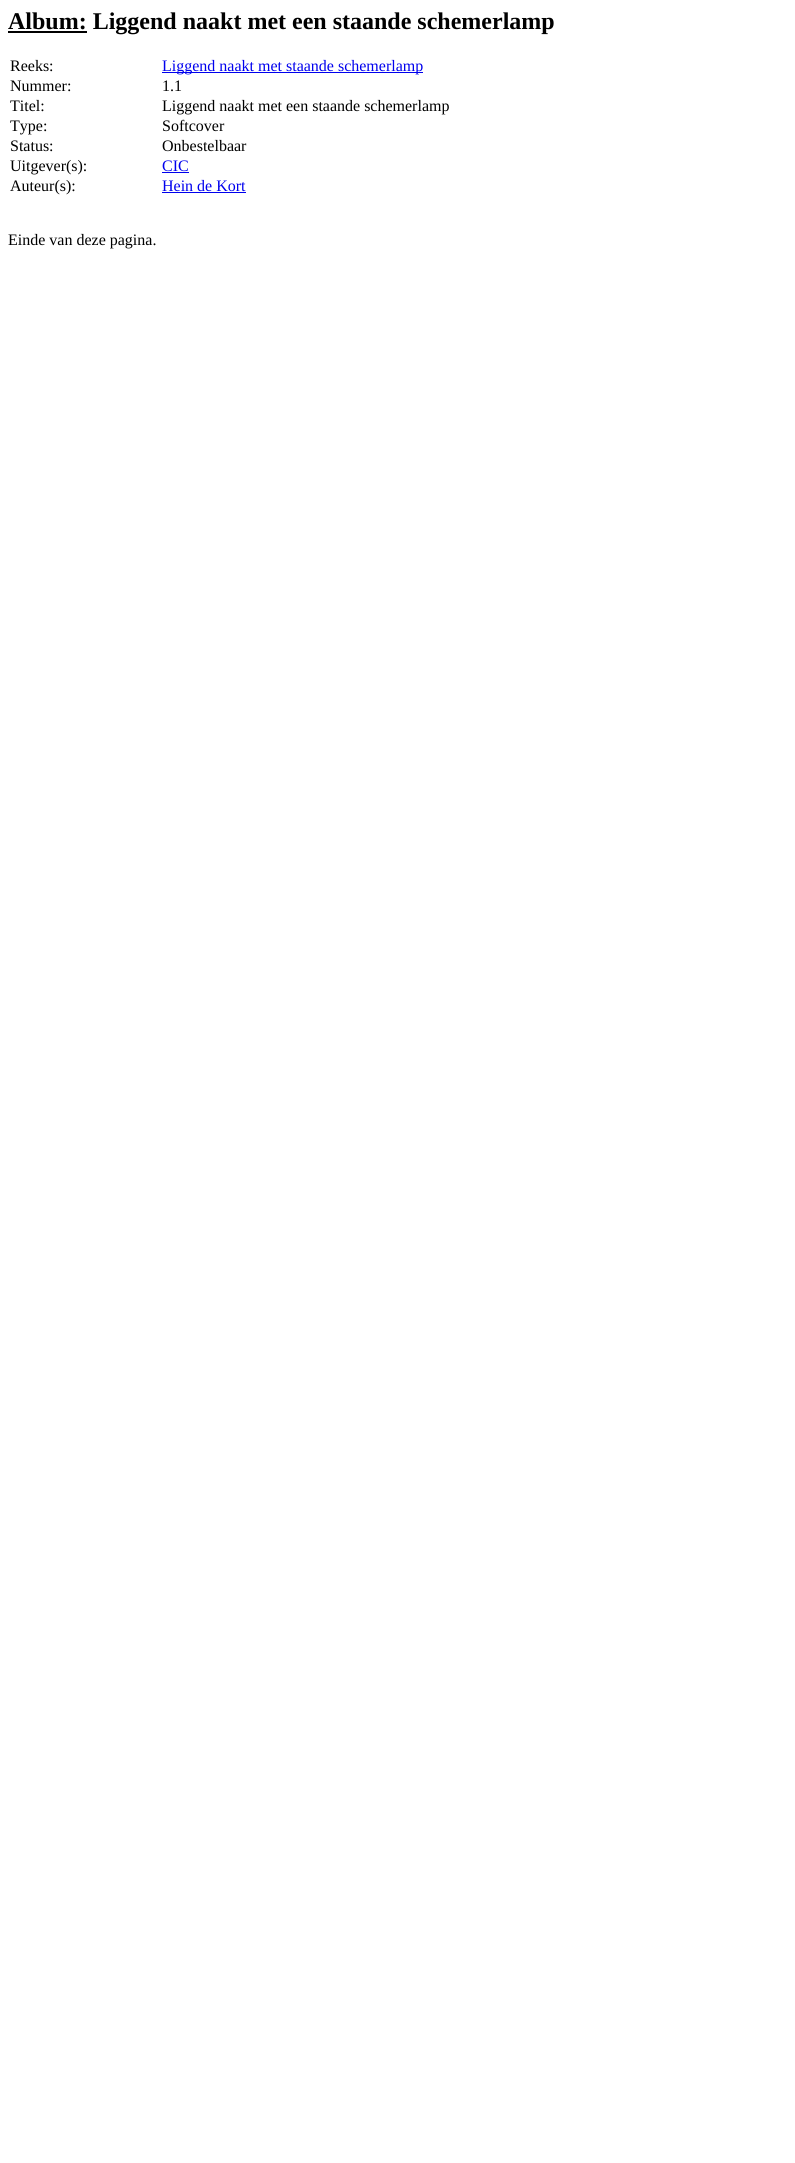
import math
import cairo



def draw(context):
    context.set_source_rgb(1, 1, 1)
    context.paint()
    context.set_source_rgb(0, 0, 0)
    context.rectangle(8, 31, 79, 2)
    context.fill()
    context.set_source_rgb(0, 0, 238 / 255)
    context.rectangle(162, 72, 261, 1)
    context.fill()
    context.rectangle(162, 172, 27, 1)
    context.fill()
    context.rectangle(162, 192, 84, 1)
    context.fill()
    context.select_font_face("Liberation Serif", cairo.FontSlant.NORMAL, cairo.FontWeight.BOLD)
    context.set_font_size(24)
    context.set_source_rgb(0, 0, 0)
    context.move_to(8, 29)
    context.show_text("Album: Liggend naakt met een staande schemerlamp")
    context.select_font_face("Liberation Serif")
    context.set_font_size(16)
    context.move_to(10, 71)
    context.show_text("Reeks:")
    context.set_source_rgb(0, 0, 238 / 255)
    context.move_to(162, 71)
    context.show_text("Liggend naakt met staande schemerlamp")
    context.set_source_rgb(0, 0, 0)
    context.move_to(10, 91)
    context.show_text("Nummer:")
    context.move_to(162, 91)
    context.show_text("1.1")
    context.move_to(10, 111)
    context.show_text("Titel:")
    context.move_to(162, 111)
    context.show_text("Liggend naakt met een staande schemerlamp")
    context.move_to(10, 131)
    context.show_text("Type:")
    context.move_to(162, 131)
    context.show_text("Softcover")
    context.move_to(10, 151)
    context.show_text("Status:")
    context.move_to(162, 151)
    context.show_text("Onbestelbaar")
    context.move_to(10, 171)
    context.show_text("Uitgever(s):")
    context.set_source_rgb(0, 0, 238 / 255)
    context.move_to(162, 171)
    context.show_text("CIC")
    context.set_source_rgb(0, 0, 0)
    context.move_to(10, 191)
    context.show_text("Auteur(s):")
    context.set_source_rgb(0, 0, 238 / 255)
    context.move_to(162, 191)
    context.show_text("Hein de Kort")
    context.set_source_rgb(0, 0, 0)
    context.move_to(8, 245)
    context.show_text("Einde van deze pagina.")


surface = cairo.ImageSurface(cairo.Format.RGB24, 795, 2163)
context = cairo.Context(surface)
options = cairo.FontOptions()
options.set_hint_metrics(cairo.HintMetrics.OFF)
options.set_hint_style(cairo.HintStyle.NONE)
context.set_font_options(options)
context.set_miter_limit(4)
draw(context)
surface.write_to_png("out.png")
